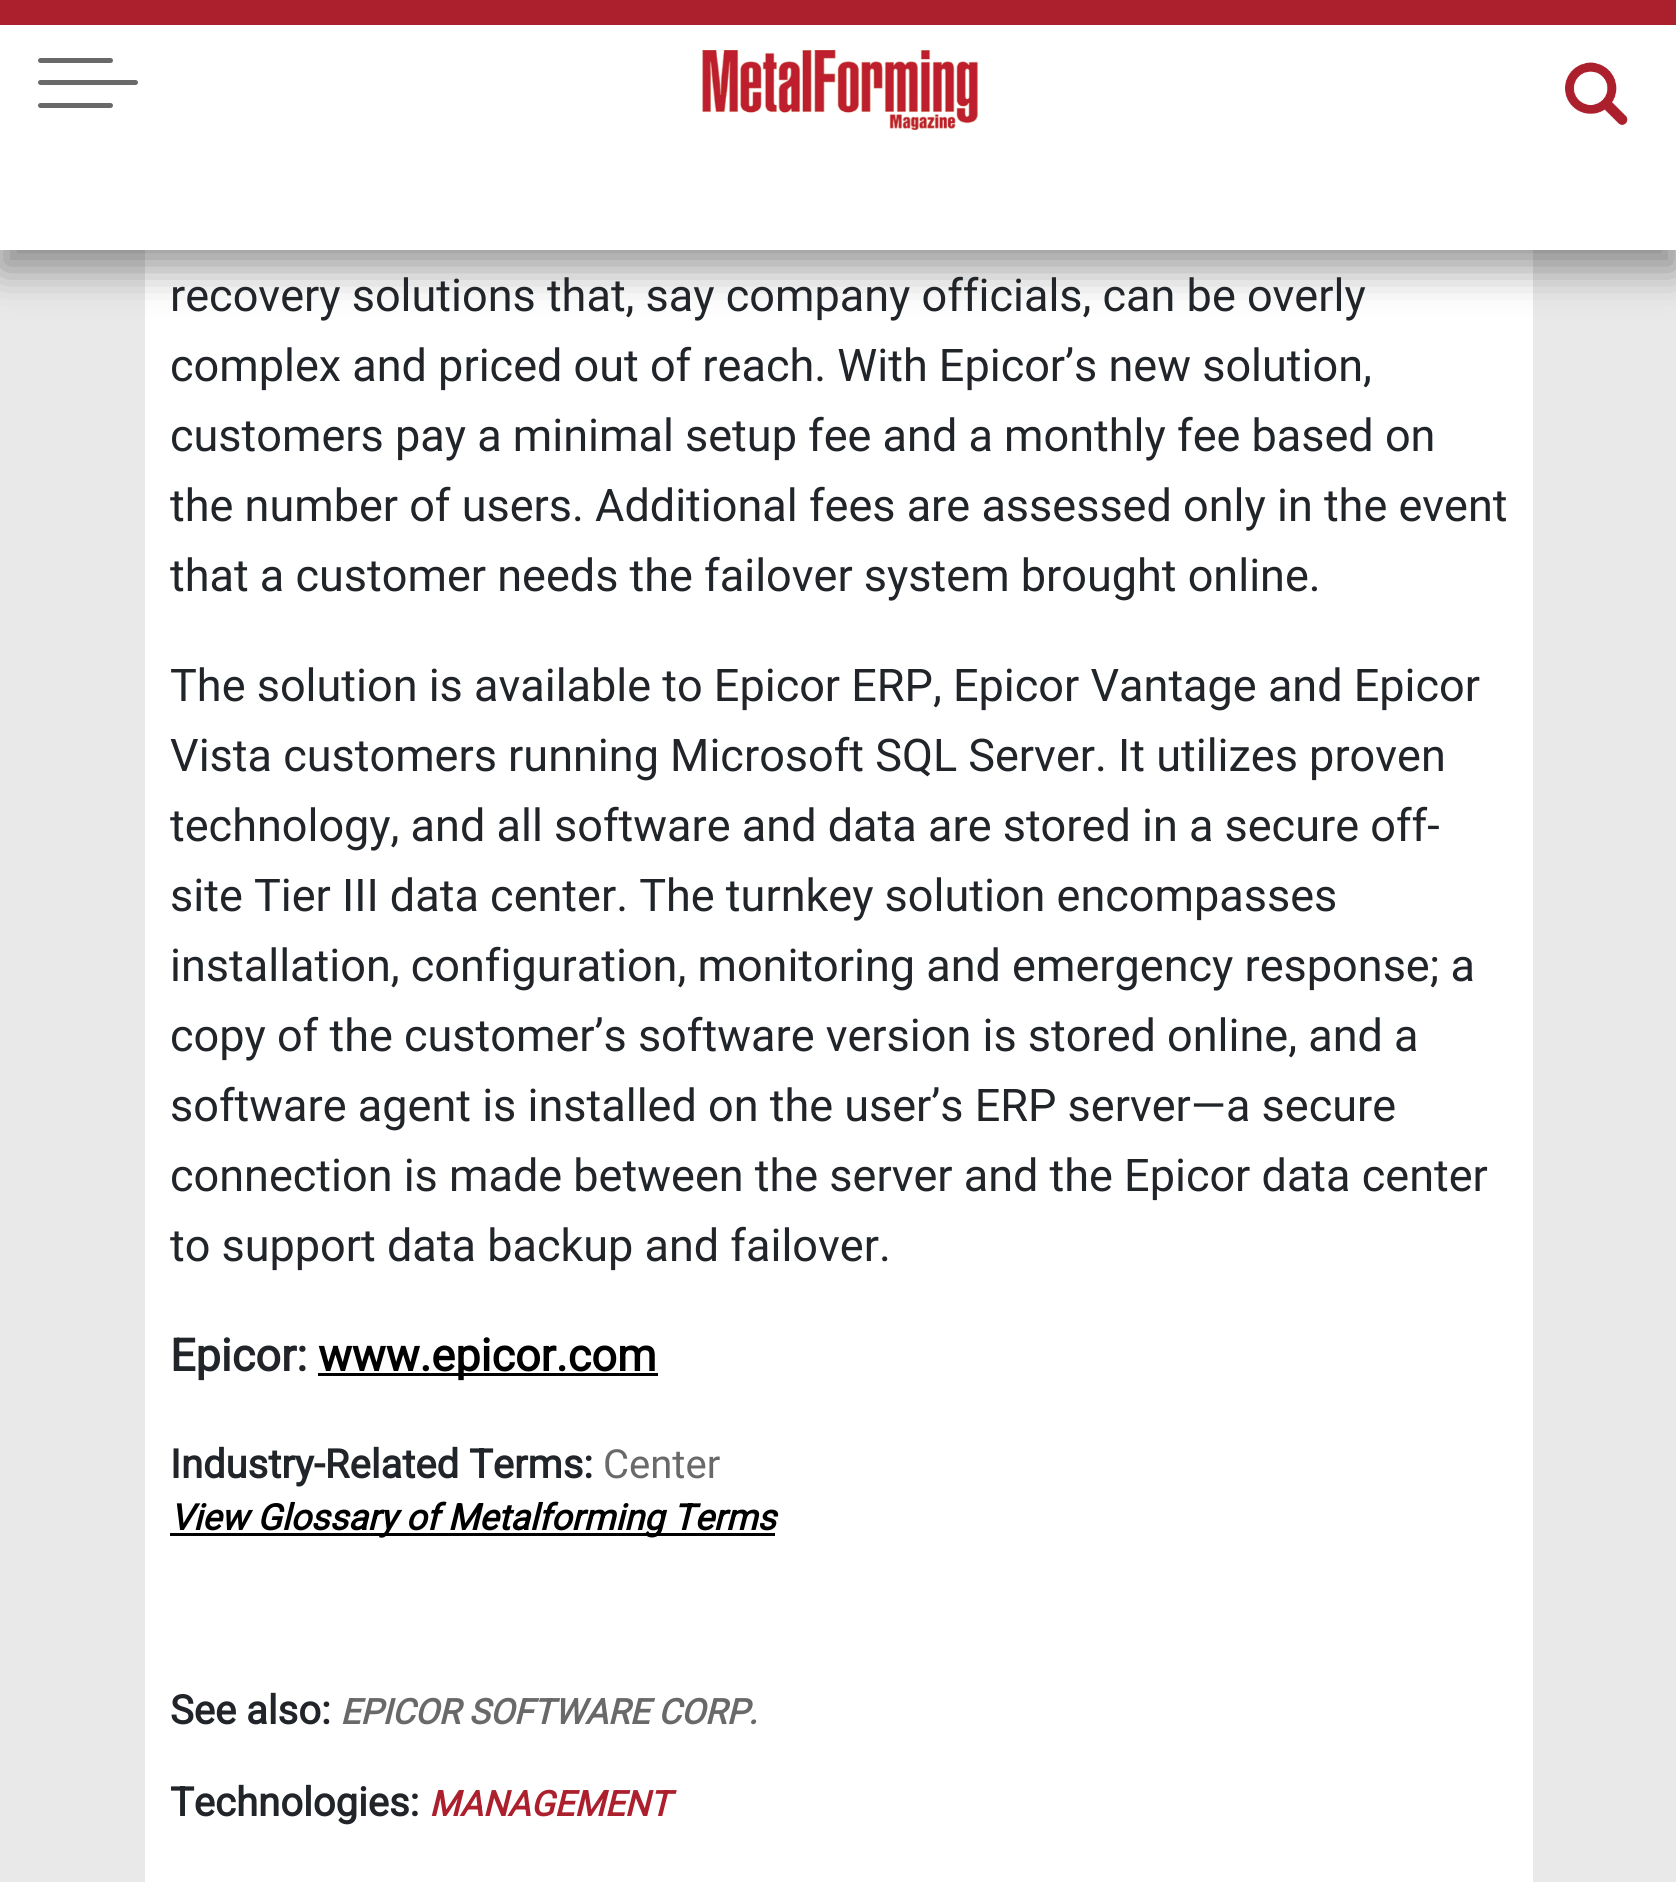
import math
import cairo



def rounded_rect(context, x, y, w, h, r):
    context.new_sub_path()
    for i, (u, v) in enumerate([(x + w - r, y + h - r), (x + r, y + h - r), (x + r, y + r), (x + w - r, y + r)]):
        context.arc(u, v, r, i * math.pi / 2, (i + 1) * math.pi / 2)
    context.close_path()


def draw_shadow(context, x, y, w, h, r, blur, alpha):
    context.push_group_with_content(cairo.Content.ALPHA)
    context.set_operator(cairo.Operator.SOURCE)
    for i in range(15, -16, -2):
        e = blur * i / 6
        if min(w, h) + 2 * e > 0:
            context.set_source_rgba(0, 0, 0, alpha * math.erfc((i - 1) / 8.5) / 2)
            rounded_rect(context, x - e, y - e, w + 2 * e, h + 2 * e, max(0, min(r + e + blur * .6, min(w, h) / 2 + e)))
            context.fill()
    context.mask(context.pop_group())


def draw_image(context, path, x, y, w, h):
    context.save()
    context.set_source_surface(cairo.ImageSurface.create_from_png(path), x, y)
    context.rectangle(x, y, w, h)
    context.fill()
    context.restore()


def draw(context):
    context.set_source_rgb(234 / 255, 233 / 255, 233 / 255)
    context.paint()
    context.set_source_rgb(1, 1, 1)
    context.rectangle(145, 250, 1388, 1632)
    context.fill()
    context.set_source_rgb(0, 0, 0)
    draw_shadow(context, 0, 20, 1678, 250, 0, 20, 0.4)
    context.set_source_rgb(1, 1, 1)
    context.rectangle(0, 25, 1676, 225)
    context.fill()
    context.set_source_rgb(172 / 255, 31 / 255, 45 / 255)
    context.rectangle(0, 0, 1676, 25)
    context.fill()
    context.set_source_rgb(105 / 255, 105 / 255, 105 / 255)
    rounded_rect(context, 38, 58, 75, 5, 2.5)
    context.fill()
    rounded_rect(context, 38, 80, 100, 5, 2.5)
    context.fill()
    rounded_rect(context, 38, 103, 75, 5, 2.5)
    context.fill()
    draw_image(context, "images/1.png", 702, 50, 276, 80)
    draw_image(context, "images/2.png", 1565, 62, 63, 64)
    context.set_source_rgb(0, 0, 0)
    context.rectangle(318, 1373, 340, 3)
    context.fill()
    context.rectangle(170, 1533, 605, 3)
    context.fill()
    context.select_font_face("Roboto")
    context.set_font_size(45)
    context.set_source_rgb(33 / 255, 37 / 255, 41 / 255)
    context.move_to(170, 311)
    context.show_text("recovery solutions that, say company officials, can be overly")
    context.move_to(170, 381)
    context.show_text("complex and priced out of reach. With Epicor’s new solution,")
    context.move_to(170, 451)
    context.show_text("customers pay a minimal setup fee and a monthly fee based on")
    context.move_to(170, 521)
    context.show_text("the number of users. Additional fees are assessed only in the event")
    context.move_to(170, 591)
    context.show_text("that a customer needs the failover system brought online.")
    context.move_to(170, 701)
    context.show_text("The solution is available to Epicor ERP, Epicor Vantage and Epicor")
    context.move_to(170, 771)
    context.show_text("Vista customers running Microsoft SQL Server. It utilizes proven")
    context.move_to(170, 841)
    context.show_text("technology, and all software and data are stored in a secure off-")
    context.move_to(170, 911)
    context.show_text("site Tier III data center. The turnkey solution encompasses")
    context.move_to(170, 981)
    context.show_text("installation, configuration, monitoring and emergency response; a")
    context.move_to(170, 1051)
    context.show_text("copy of the customer’s software version is stored online, and a")
    context.move_to(170, 1121)
    context.show_text("software agent is installed on the user’s ERP server—a secure")
    context.move_to(170, 1191)
    context.show_text("connection is made between the server and the Epicor data center")
    context.move_to(170, 1261)
    context.show_text("to support data backup and failover.")
    context.select_font_face("Roboto", cairo.FontSlant.NORMAL, cairo.FontWeight.BOLD)
    context.move_to(170, 1371)
    context.show_text("Epicor:")
    context.set_source_rgb(0, 0, 0)
    context.move_to(318, 1371)
    context.show_text("www.epicor.com")
    context.set_font_size(40)
    context.set_source_rgb(33 / 255, 37 / 255, 41 / 255)
    context.move_to(170, 1478)
    context.show_text("Industry-Related Terms:")
    context.select_font_face("Roboto")
    context.set_source_rgb(105 / 255, 105 / 255, 105 / 255)
    context.move_to(603, 1478)
    context.show_text("Center")
    context.select_font_face("Roboto", cairo.FontSlant.ITALIC, cairo.FontWeight.BOLD)
    context.set_font_size(36)
    context.set_source_rgb(0, 0, 0)
    context.move_to(170, 1530)
    context.show_text("View Glossary of Metalforming Terms")
    context.select_font_face("Roboto", cairo.FontSlant.NORMAL, cairo.FontWeight.BOLD)
    context.set_font_size(40)
    context.set_source_rgb(33 / 255, 37 / 255, 41 / 255)
    context.move_to(170, 1724)
    context.show_text("See also:")
    context.select_font_face("Roboto", cairo.FontSlant.ITALIC, cairo.FontWeight.BOLD)
    context.set_font_size(35)
    context.set_source_rgb(105 / 255, 105 / 255, 105 / 255)
    context.move_to(340, 1724)
    context.show_text("EPICOR SOFTWARE CORP.")
    context.select_font_face("Roboto", cairo.FontSlant.NORMAL, cairo.FontWeight.BOLD)
    context.set_font_size(40)
    context.set_source_rgb(33 / 255, 37 / 255, 41 / 255)
    context.move_to(170, 1816)
    context.show_text("Technologies:")
    context.select_font_face("Roboto", cairo.FontSlant.ITALIC, cairo.FontWeight.BOLD)
    context.set_font_size(35)
    context.set_source_rgb(172 / 255, 31 / 255, 45 / 255)
    context.move_to(429, 1816)
    context.show_text("MANAGEMENT")


surface = cairo.ImageSurface(cairo.Format.RGB24, 1676, 1882)
context = cairo.Context(surface)
options = cairo.FontOptions()
options.set_hint_metrics(cairo.HintMetrics.OFF)
options.set_hint_style(cairo.HintStyle.NONE)
context.set_font_options(options)
context.set_miter_limit(4)
draw(context)
surface.write_to_png("out.png")
